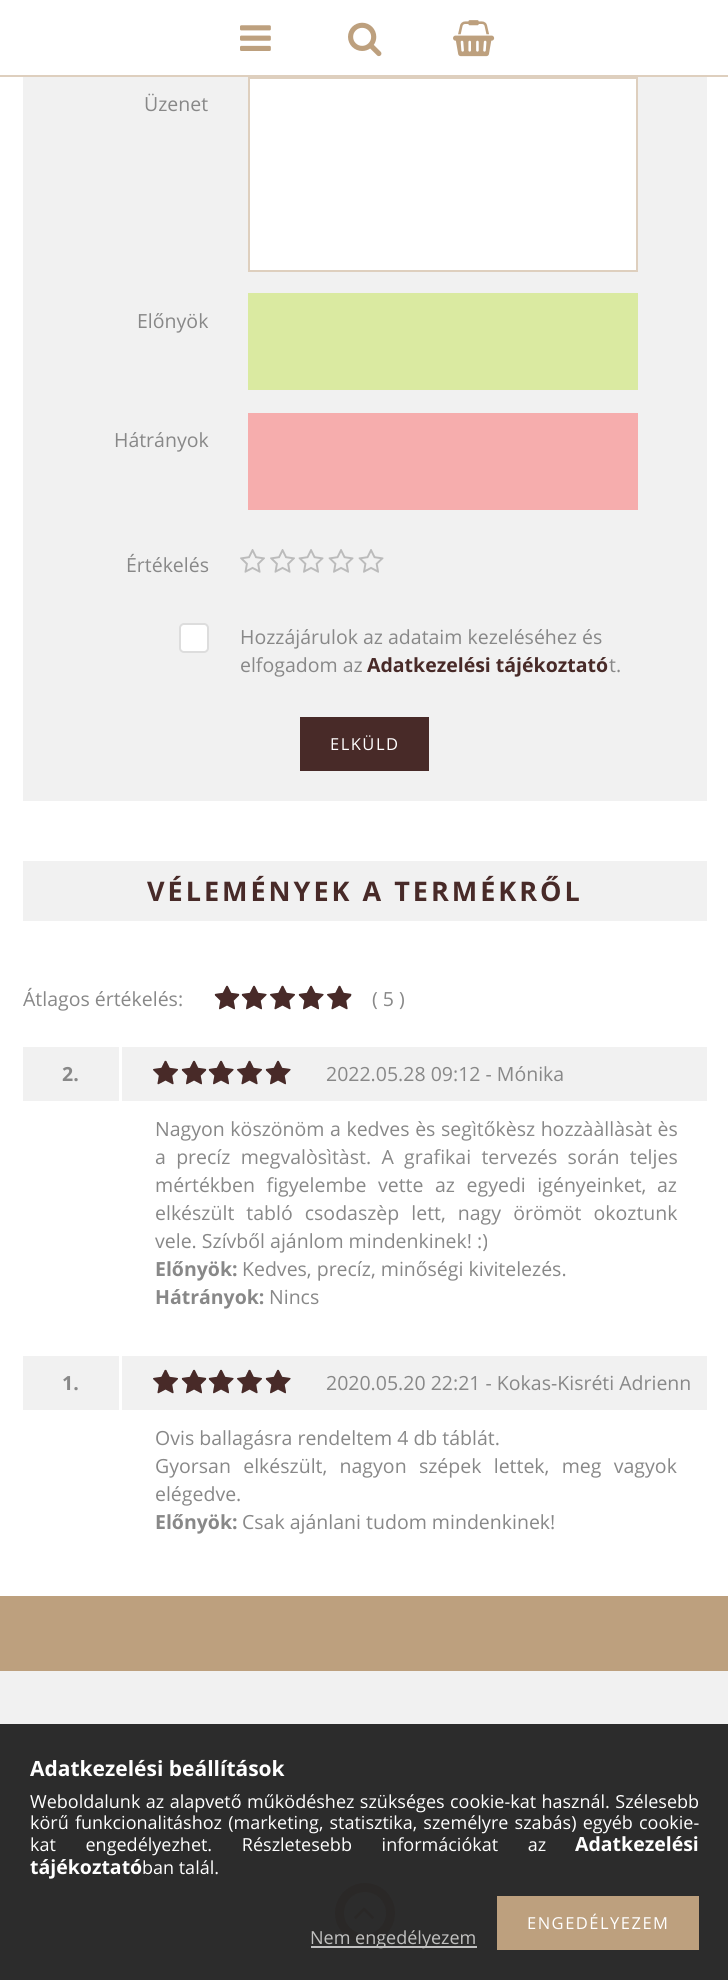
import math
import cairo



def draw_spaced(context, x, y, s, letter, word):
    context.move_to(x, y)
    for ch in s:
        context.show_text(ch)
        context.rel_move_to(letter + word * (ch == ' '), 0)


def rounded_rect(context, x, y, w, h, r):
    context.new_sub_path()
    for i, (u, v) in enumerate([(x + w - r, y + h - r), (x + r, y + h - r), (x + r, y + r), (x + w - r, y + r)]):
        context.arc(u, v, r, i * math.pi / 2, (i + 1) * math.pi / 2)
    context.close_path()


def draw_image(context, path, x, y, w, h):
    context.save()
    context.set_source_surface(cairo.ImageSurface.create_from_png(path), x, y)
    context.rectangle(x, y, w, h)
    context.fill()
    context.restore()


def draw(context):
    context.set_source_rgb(1, 1, 1)
    context.paint()
    context.set_source_rgb(222 / 255, 207 / 255, 190 / 255)
    context.rectangle(0, 75, 728, 2)
    context.fill()
    draw_image(context, "images/1.png", 240, 25, 31, 26)
    draw_image(context, "images/2.png", 348, 22, 34, 35)
    draw_image(context, "images/3.png", 453, 20, 42, 37)
    context.set_source_rgb(241 / 255, 241 / 255, 241 / 255)
    context.rectangle(23, 77, 684, 724)
    context.fill()
    context.set_source_rgb(1, 1, 1)
    context.rectangle(249, 78, 388, 193)
    context.fill_preserve()
    context.set_source_rgb(222 / 255, 207 / 255, 190 / 255)
    context.stroke()
    context.set_source_rgb(218 / 255, 234 / 255, 161 / 255)
    context.rectangle(248, 293, 390, 97)
    context.fill()
    context.set_source_rgb(246 / 255, 173 / 255, 173 / 255)
    context.rectangle(248, 413, 390, 97)
    context.fill()
    draw_image(context, "images/4.png", 240, 549, 25, 24)
    draw_image(context, "images/4.png", 270, 549, 25, 24)
    draw_image(context, "images/5.png", 298, 549, 26, 24)
    draw_image(context, "images/5.png", 328, 549, 26, 24)
    draw_image(context, "images/5.png", 358, 549, 26, 24)
    context.set_source_rgb(1, 1, 1)
    rounded_rect(context, 180, 624, 28, 28, 4)
    context.fill_preserve()
    context.set_source_rgb(221 / 255, 221 / 255, 221 / 255)
    context.stroke()
    context.set_source_rgb(72 / 255, 42 / 255, 40 / 255)
    context.rectangle(300, 717, 129, 54)
    context.fill()
    context.set_source_rgb(241 / 255, 241 / 255, 241 / 255)
    context.rectangle(23, 861, 684, 60)
    context.fill()
    draw_image(context, "images/6.png", 214, 985, 26, 25)
    draw_image(context, "images/6.png", 241, 985, 26, 25)
    draw_image(context, "images/7.png", 270, 985, 25, 25)
    draw_image(context, "images/6.png", 298, 985, 26, 25)
    draw_image(context, "images/7.png", 327, 985, 25, 25)
    draw_image(context, "images/8.png", 215, 986, 24, 24)
    draw_image(context, "images/9.png", 242, 986, 25, 24)
    draw_image(context, "images/10.png", 270, 986, 25, 24)
    draw_image(context, "images/9.png", 299, 986, 25, 24)
    draw_image(context, "images/11.png", 327, 986, 24, 24)
    context.rectangle(23, 1047, 684, 54)
    context.fill()
    context.set_source_rgb(1, 1, 1)
    context.rectangle(119, 1047, 3, 54)
    context.fill()
    draw_image(context, "images/12.png", 153, 1060, 25, 25)
    draw_image(context, "images/13.png", 181, 1060, 26, 25)
    draw_image(context, "images/13.png", 208, 1060, 26, 25)
    draw_image(context, "images/12.png", 237, 1060, 25, 25)
    draw_image(context, "images/13.png", 265, 1060, 26, 25)
    draw_image(context, "images/14.png", 153, 1061, 25, 24)
    draw_image(context, "images/15.png", 182, 1061, 24, 24)
    draw_image(context, "images/16.png", 209, 1061, 25, 24)
    draw_image(context, "images/14.png", 237, 1061, 25, 24)
    draw_image(context, "images/16.png", 266, 1061, 25, 24)
    context.set_source_rgb(241 / 255, 241 / 255, 241 / 255)
    context.rectangle(23, 1356, 684, 54)
    context.fill()
    context.set_source_rgb(1, 1, 1)
    context.rectangle(119, 1356, 3, 54)
    context.fill()
    draw_image(context, "images/12.png", 153, 1369, 25, 25)
    draw_image(context, "images/13.png", 181, 1369, 26, 25)
    draw_image(context, "images/13.png", 208, 1369, 26, 25)
    draw_image(context, "images/12.png", 237, 1369, 25, 25)
    draw_image(context, "images/13.png", 265, 1369, 26, 25)
    draw_image(context, "images/14.png", 153, 1370, 25, 24)
    draw_image(context, "images/15.png", 182, 1370, 24, 24)
    draw_image(context, "images/16.png", 209, 1370, 25, 24)
    draw_image(context, "images/14.png", 237, 1370, 25, 24)
    draw_image(context, "images/16.png", 266, 1370, 25, 24)
    context.set_source_rgb(189 / 255, 160 / 255, 126 / 255)
    context.rectangle(0, 1596, 728, 75)
    context.fill()
    context.set_source_rgb(241 / 255, 241 / 255, 241 / 255)
    context.rectangle(0, 1671, 728, 53)
    context.fill()
    context.set_source_rgb(44 / 255, 44 / 255, 44 / 255)
    context.rectangle(0, 1724, 728, 256)
    context.fill()
    context.set_source_rgb(189 / 255, 160 / 255, 126 / 255)
    context.rectangle(497, 1896, 202, 54)
    context.fill()
    context.set_source_rgb(192 / 255, 192 / 255, 192 / 255)
    context.rectangle(311, 1946, 166, 2)
    context.fill()
    context.arc(365, 1913, 25.5, 0, 2 * math.pi)
    context.set_source_rgb(42 / 255, 40 / 255, 39 / 255)
    context.set_line_width(9)
    context.stroke()
    draw_image(context, "images/17.png", 354, 1907, 20, 12)
    context.select_font_face("Open Sans")
    context.set_font_size(19.5)
    context.set_source_rgb(136 / 255, 136 / 255, 136 / 255)
    context.move_to(144, 111)
    context.show_text("Üzenet")
    context.move_to(137, 328)
    context.show_text("Előnyök")
    context.move_to(114, 447)
    context.show_text("Hátrányok")
    context.move_to(126, 572)
    context.show_text("Értékelés")
    context.move_to(240, 644)
    context.show_text("Hozzájárulok az adataim kezeléséhez és")
    context.move_to(240, 672)
    context.show_text("elfogadom az")
    context.select_font_face("Open Sans", cairo.FontSlant.NORMAL, cairo.FontWeight.BOLD)
    context.set_source_rgb(72 / 255, 42 / 255, 40 / 255)
    context.move_to(367, 672)
    context.show_text("Adatkezelési tájékoztató")
    context.select_font_face("Open Sans")
    context.set_source_rgb(136 / 255, 136 / 255, 136 / 255)
    context.move_to(609, 672)
    context.show_text("t.")
    context.set_font_size(16.5)
    context.set_source_rgb(1, 1, 1)
    draw_spaced(context, 330, 750, "ELKÜLD", 1.5, 0)
    context.select_font_face("Open Sans", cairo.FontSlant.NORMAL, cairo.FontWeight.BOLD)
    context.set_font_size(27)
    context.set_source_rgb(72 / 255, 42 / 255, 40 / 255)
    draw_spaced(context, 147, 901, "VÉLEMÉNYEK A TERMÉKRŐL", 3, 0)
    context.select_font_face("Open Sans")
    context.set_font_size(19.5)
    context.set_source_rgb(136 / 255, 136 / 255, 136 / 255)
    context.move_to(23, 1006)
    context.show_text("Átlagos értékelés:")
    context.move_to(372, 1006)
    context.show_text("( 5 )")
    context.select_font_face("Open Sans", cairo.FontSlant.NORMAL, cairo.FontWeight.BOLD)
    context.move_to(62, 1081)
    context.show_text("2.")
    context.select_font_face("Open Sans")
    context.move_to(326, 1081)
    context.show_text("2022.05.28 09:12 - Mónika")
    draw_spaced(context, 155, 1136, "Nagyon köszönöm a kedves ès segìtőkèsz hozzààllàsàt ès", 0, 0.5)
    draw_spaced(context, 155, 1164, "a precíz megvalòsìtàst. A grafikai tervezés során teljes", 0, 5.25)
    draw_spaced(context, 155, 1192, "mértékben figyelembe vette az egyedi igényeinket,", 0, 6.5)
    context.move_to(657, 1192)
    context.show_text("az")
    draw_spaced(context, 155, 1220, "elkészült tabló csodaszèp lett, nagy örömöt okoztunk", 0, 7)
    context.move_to(155, 1248)
    context.show_text("vele. Szívből ajánlom mindenkinek! :)")
    context.select_font_face("Open Sans", cairo.FontSlant.NORMAL, cairo.FontWeight.BOLD)
    context.move_to(155, 1276)
    context.show_text("Előnyök:")
    context.select_font_face("Open Sans")
    context.move_to(242, 1276)
    context.show_text("Kedves, precíz, minőségi kivitelezés.")
    context.select_font_face("Open Sans", cairo.FontSlant.NORMAL, cairo.FontWeight.BOLD)
    context.move_to(155, 1304)
    context.show_text("Hátrányok:")
    context.select_font_face("Open Sans")
    context.move_to(269, 1304)
    context.show_text("Nincs")
    context.select_font_face("Open Sans", cairo.FontSlant.NORMAL, cairo.FontWeight.BOLD)
    context.move_to(62, 1390)
    context.show_text("1.")
    context.select_font_face("Open Sans")
    context.move_to(326, 1390)
    context.show_text("2020.05.20 22:21 - Kokas-Kisréti Adrienn")
    context.move_to(155, 1445)
    context.show_text("Ovis ballagásra rendeltem 4 db táblát.")
    draw_spaced(context, 155, 1473, "Gyorsan elkészült, nagyon szépek lettek, meg vagyok", 0, 7.25)
    context.move_to(155, 1501)
    context.show_text("elégedve.")
    context.select_font_face("Open Sans", cairo.FontSlant.NORMAL, cairo.FontWeight.BOLD)
    context.move_to(155, 1529)
    context.show_text("Előnyök:")
    context.select_font_face("Open Sans")
    context.move_to(242, 1529)
    context.show_text("Csak ajánlani tudom mindenkinek!")
    context.select_font_face("Open Sans", cairo.FontSlant.NORMAL, cairo.FontWeight.BOLD)
    context.set_font_size(21)
    context.set_source_rgb(1, 1, 1)
    context.move_to(30, 1776)
    context.show_text("Adatkezelési beállítások")
    context.select_font_face("Open Sans")
    context.set_font_size(18)
    draw_spaced(context, 30, 1808, "Weboldalunk az alapvető működéshez szükséges cookie-kat használ. Szélesebb", 0, 0.75)
    draw_spaced(context, 30, 1829, "körű funkcionalitáshoz (marketing, statisztika, személyre szabás) egyéb cookie-", 0, 1.5)
    draw_spaced(context, 30, 1851, "kat engedélyezhet. Részletesebb információkat az", 0, 25)
    context.select_font_face("Open Sans", cairo.FontSlant.NORMAL, cairo.FontWeight.BOLD)
    context.set_font_size(19.5)
    context.move_to(575, 1851)
    context.show_text("Adatkezelési")
    context.move_to(30, 1874)
    context.show_text("tájékoztató")
    context.select_font_face("Open Sans")
    context.set_font_size(18)
    context.move_to(142, 1874)
    context.show_text("ban talál.")
    context.set_font_size(16.5)
    draw_spaced(context, 527, 1929, "ENGEDÉLYEZEM", 1.5, 0)
    context.set_font_size(18)
    context.set_source_rgb(193 / 255, 193 / 255, 192 / 255)
    context.move_to(310, 1944)
    context.show_text("Nem engedélyezem")


surface = cairo.ImageSurface(cairo.Format.RGB24, 728, 1980)
context = cairo.Context(surface)
options = cairo.FontOptions()
options.set_hint_metrics(cairo.HintMetrics.OFF)
options.set_hint_style(cairo.HintStyle.NONE)
context.set_font_options(options)
context.set_miter_limit(4)
draw(context)
surface.write_to_png("out.png")
